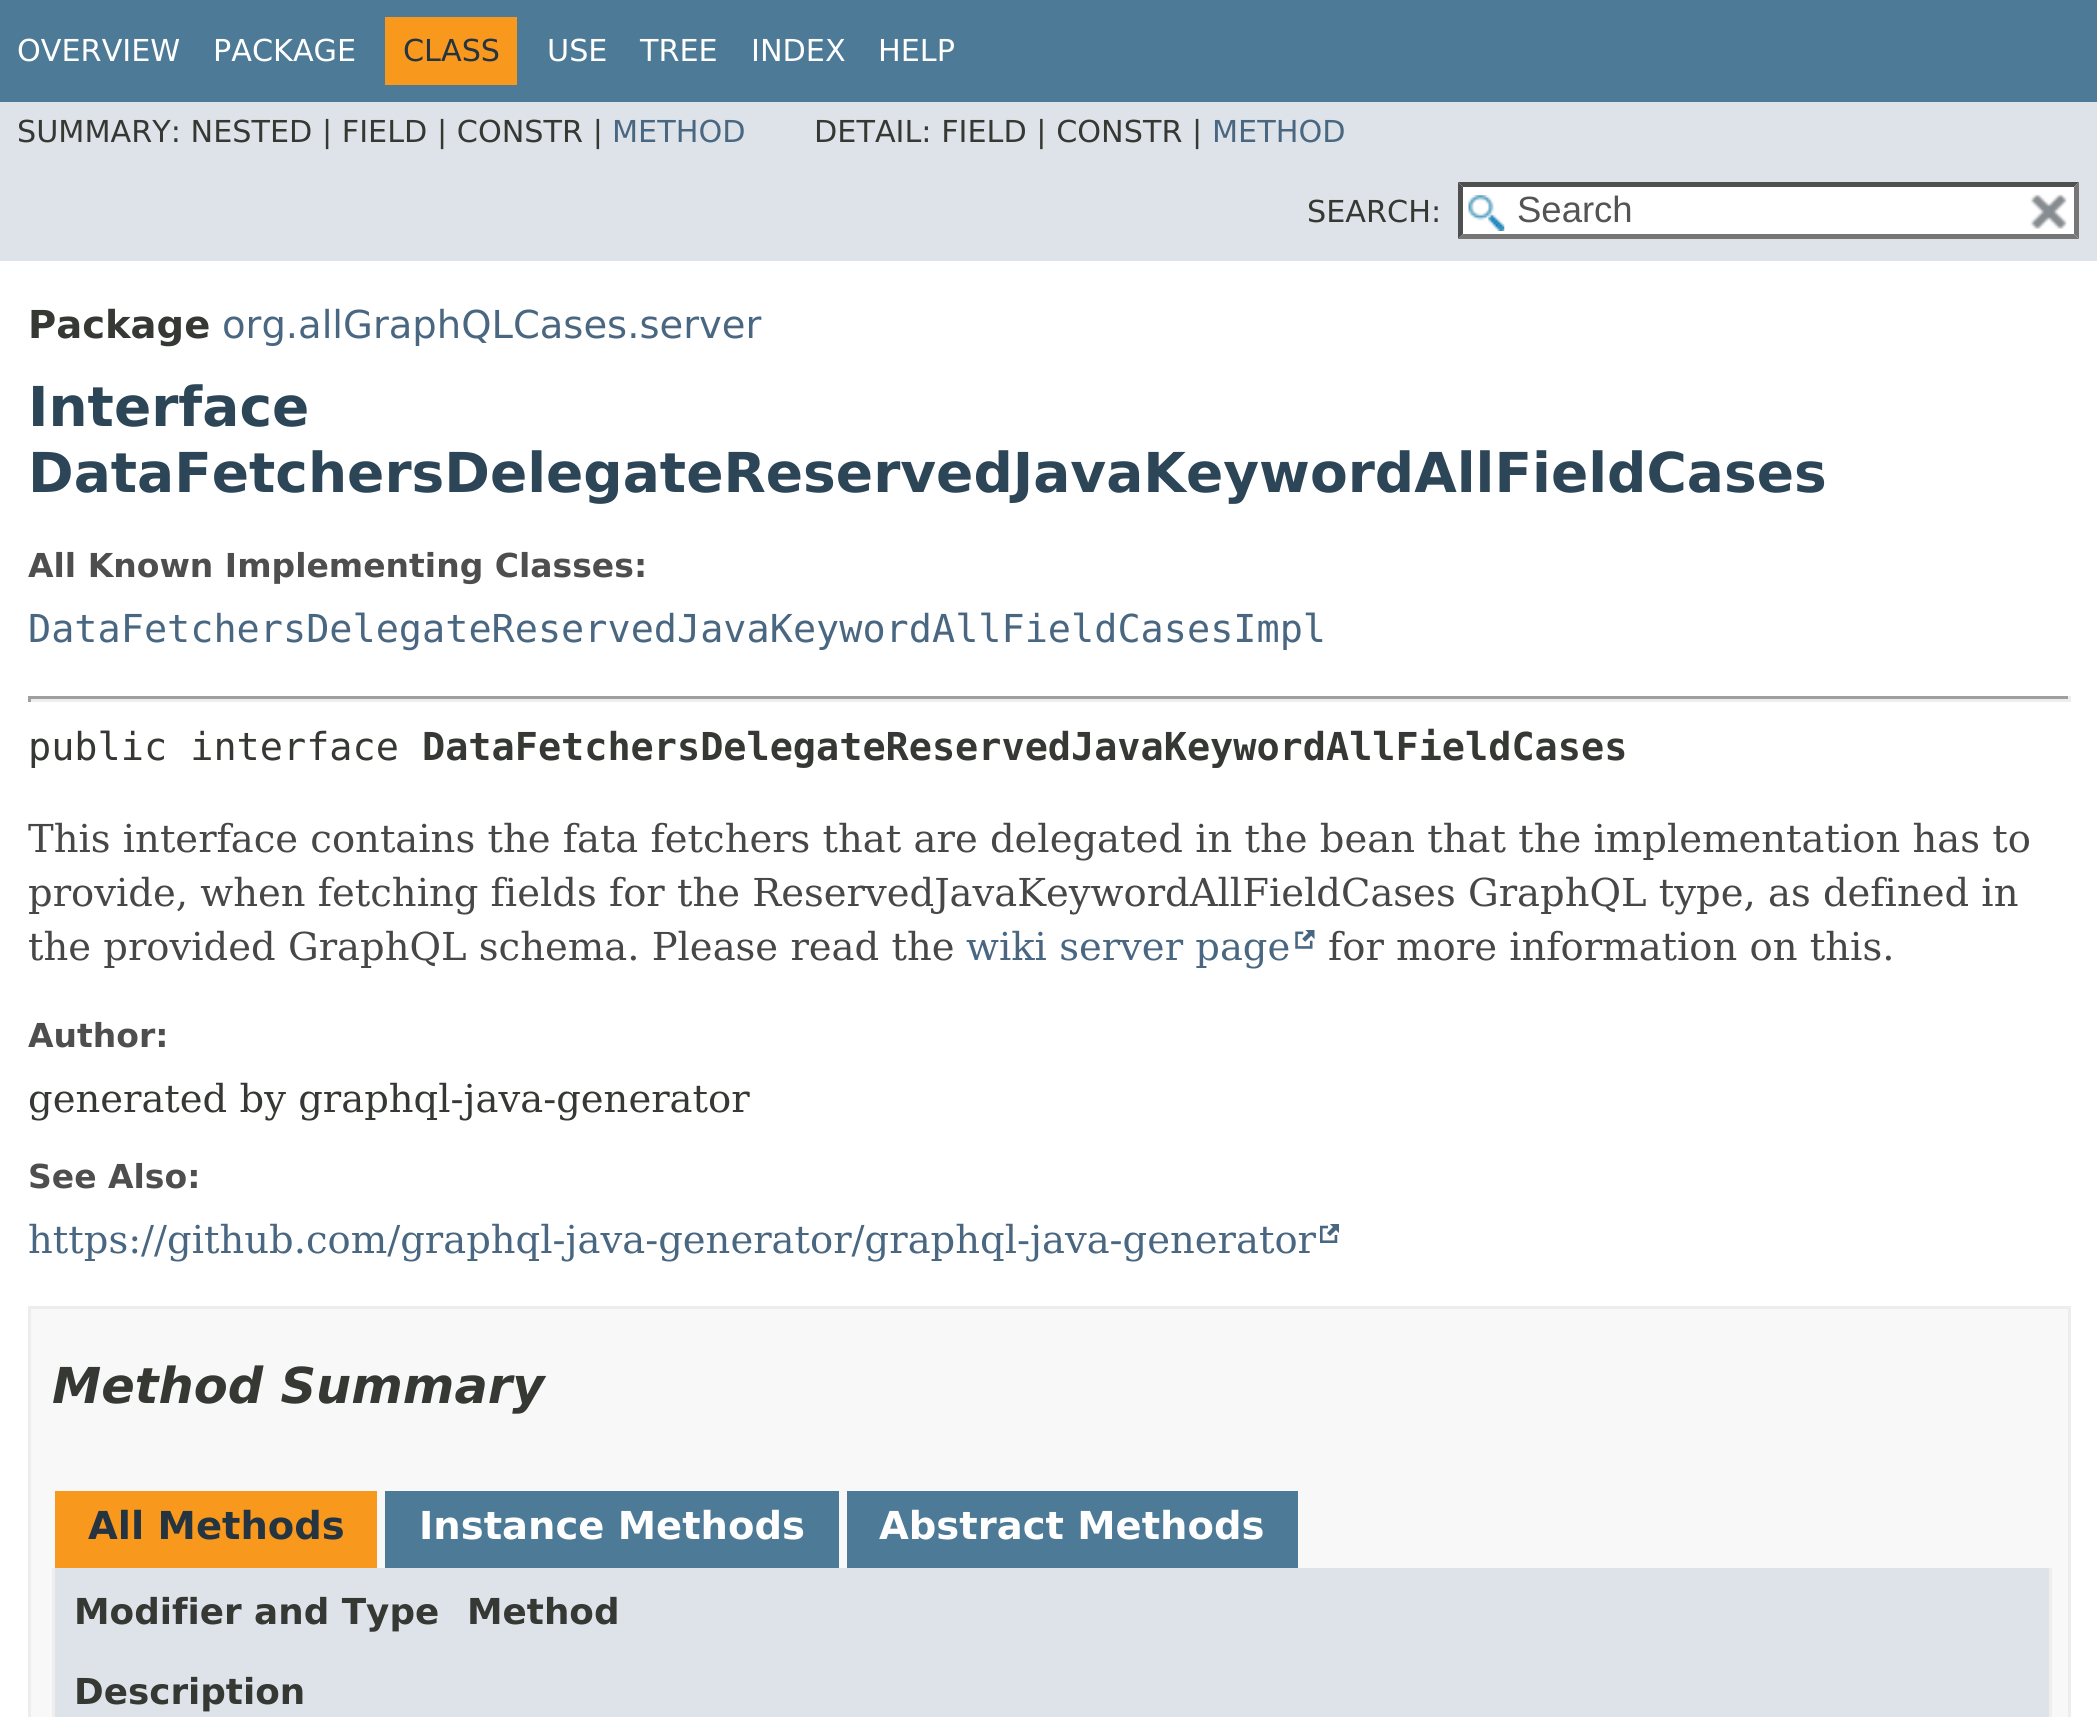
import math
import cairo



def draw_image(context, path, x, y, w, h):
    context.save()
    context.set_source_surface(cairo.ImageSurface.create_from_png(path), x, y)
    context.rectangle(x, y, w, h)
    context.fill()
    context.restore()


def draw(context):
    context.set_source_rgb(1, 1, 1)
    context.paint()
    context.set_source_rgb(77 / 255, 122 / 255, 151 / 255)
    context.rectangle(0, 0, 2097, 102)
    context.fill()
    context.set_source_rgb(248 / 255, 152 / 255, 29 / 255)
    context.rectangle(385, 17, 132, 68)
    context.fill()
    context.set_source_rgb(222 / 255, 227 / 255, 233 / 255)
    context.rectangle(0, 102, 2097, 159)
    context.fill()
    context.set_source_rgb(1, 1, 1)
    context.rectangle(1458, 182, 621, 57)
    context.fill()
    draw_image(context, "images/1.png", 1468, 195, 37, 36)
    context.set_source_rgb(79 / 255, 79 / 255, 79 / 255)
    context.new_path()
    context.move_to(1458, 182)
    context.line_to(2079, 182)
    context.line_to(2074, 187)
    context.line_to(1463, 187)
    context.close_path()
    context.fill()
    context.set_source_rgb(118 / 255, 118 / 255, 118 / 255)
    context.new_path()
    context.move_to(2079, 182)
    context.line_to(2079, 239)
    context.line_to(2074, 234)
    context.line_to(2074, 187)
    context.close_path()
    context.fill()
    context.new_path()
    context.move_to(2079, 239)
    context.line_to(1458, 239)
    context.line_to(1463, 234)
    context.line_to(2074, 234)
    context.close_path()
    context.fill()
    context.set_source_rgb(79 / 255, 79 / 255, 79 / 255)
    context.new_path()
    context.move_to(1458, 239)
    context.line_to(1458, 182)
    context.line_to(1463, 187)
    context.line_to(1463, 234)
    context.close_path()
    context.fill()
    draw_image(context, "images/2.png", 2030, 194, 37, 35)
    context.set_source_rgb(159 / 255, 159 / 255, 159 / 255)
    context.rectangle(28, 696, 2043, 3)
    context.fill()
    context.set_source_rgb(238 / 255, 238 / 255, 238 / 255)
    context.rectangle(2068, 696, 3, 6)
    context.fill()
    context.rectangle(28, 699, 2043, 3)
    context.fill()
    context.set_source_rgb(159 / 255, 159 / 255, 159 / 255)
    context.rectangle(28, 696, 3, 6)
    context.fill()
    draw_image(context, "images/3.png", 1295, 930, 20, 19)
    draw_image(context, "images/4.png", 1320, 1224, 19, 19)
    context.set_source_rgb(248 / 255, 248 / 255, 248 / 255)
    context.rectangle(29.5, 1307.5, 2040, 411)
    context.fill_preserve()
    context.set_source_rgb(237 / 255, 237 / 255, 237 / 255)
    context.set_line_width(3)
    context.stroke()
    context.set_source_rgb(248 / 255, 152 / 255, 29 / 255)
    context.rectangle(55, 1491, 322, 77)
    context.fill()
    context.set_source_rgb(77 / 255, 122 / 255, 151 / 255)
    context.rectangle(385, 1491, 454, 77)
    context.fill()
    context.rectangle(847, 1491, 451, 77)
    context.fill()
    context.set_source_rgb(238 / 255, 238 / 255, 238 / 255)
    context.rectangle(2049, 1568, 3, 149)
    context.fill()
    context.rectangle(52, 1568, 3, 149)
    context.fill()
    context.set_source_rgb(222 / 255, 227 / 255, 233 / 255)
    context.rectangle(55, 1568, 1994, 79)
    context.fill()
    context.rectangle(55, 1647, 1994, 70)
    context.fill()
    context.select_font_face("DejaVu Sans")
    context.set_font_size(30.25)
    context.set_source_rgb(1, 1, 1)
    context.move_to(17, 61)
    context.show_text("OVERVIEW")
    context.move_to(213, 61)
    context.show_text("PACKAGE")
    context.set_source_rgb(37 / 255, 52 / 255, 65 / 255)
    context.move_to(403, 61)
    context.show_text("CLASS")
    context.set_source_rgb(1, 1, 1)
    context.move_to(547, 61)
    context.show_text("USE")
    context.move_to(640, 61)
    context.show_text("TREE")
    context.move_to(751, 61)
    context.show_text("INDEX")
    context.move_to(878, 61)
    context.show_text("HELP")
    context.set_source_rgb(53 / 255, 56 / 255, 51 / 255)
    context.move_to(17, 142)
    context.show_text("SUMMARY: NESTED | FIELD | CONSTR |")
    context.set_source_rgb(74 / 255, 103 / 255, 130 / 255)
    context.move_to(612, 142)
    context.show_text("METHOD")
    context.set_source_rgb(53 / 255, 56 / 255, 51 / 255)
    context.move_to(814, 142)
    context.show_text("DETAIL: FIELD | CONSTR |")
    context.set_source_rgb(74 / 255, 103 / 255, 130 / 255)
    context.move_to(1212, 142)
    context.show_text("METHOD")
    context.set_source_rgb(53 / 255, 56 / 255, 51 / 255)
    context.move_to(1307, 222)
    context.show_text("SEARCH:")
    context.select_font_face("Liberation Sans")
    context.set_font_size(36.5)
    context.set_source_rgb(84 / 255, 84 / 255, 84 / 255)
    context.move_to(1517, 222)
    context.show_text("Search")
    context.select_font_face("DejaVu Sans", cairo.FontSlant.NORMAL, cairo.FontWeight.BOLD)
    context.set_font_size(38.5)
    context.set_source_rgb(53 / 255, 56 / 255, 51 / 255)
    context.move_to(28, 338)
    context.show_text("Package")
    context.select_font_face("DejaVu Sans")
    context.set_source_rgb(74 / 255, 103 / 255, 130 / 255)
    context.move_to(222, 338)
    context.show_text("org.allGraphQLCases.server")
    context.select_font_face("DejaVu Sans", cairo.FontSlant.NORMAL, cairo.FontWeight.BOLD)
    context.set_font_size(55)
    context.set_source_rgb(44 / 255, 69 / 255, 87 / 255)
    context.move_to(28, 426)
    context.show_text("Interface")
    context.move_to(28, 492)
    context.show_text("DataFetchersDelegateReservedJavaKeywordAllFieldCases")
    context.set_font_size(33)
    context.set_source_rgb(78 / 255, 78 / 255, 78 / 255)
    context.move_to(28, 577)
    context.show_text("All Known Implementing Classes:")
    context.select_font_face("DejaVu Sans Mono")
    context.set_font_size(38.5)
    context.set_source_rgb(74 / 255, 103 / 255, 130 / 255)
    context.move_to(28, 642)
    context.show_text("DataFetchersDelegateReservedJavaKeywordAllFieldCasesImpl")
    context.set_source_rgb(53 / 255, 56 / 255, 51 / 255)
    context.move_to(28, 760)
    context.show_text("public interface")
    context.select_font_face("DejaVu Sans Mono", cairo.FontSlant.NORMAL, cairo.FontWeight.BOLD)
    context.move_to(422, 760)
    context.show_text("DataFetchersDelegateReservedJavaKeywordAllFieldCases")
    context.select_font_face("DejaVu Serif")
    context.set_source_rgb(71 / 255, 71 / 255, 71 / 255)
    context.move_to(28, 852)
    context.show_text("This interface contains the fata fetchers that are delegated in the bean that the implementation has to")
    context.move_to(28, 906)
    context.show_text("provide, when fetching fields for the ReservedJavaKeywordAllFieldCases GraphQL type, as defined in")
    context.move_to(28, 960)
    context.show_text("the provided GraphQL schema. Please read the")
    context.set_source_rgb(74 / 255, 103 / 255, 130 / 255)
    context.move_to(966, 960)
    context.show_text("wiki server page")
    context.set_source_rgb(71 / 255, 71 / 255, 71 / 255)
    context.move_to(1328, 960)
    context.show_text("for more information on this.")
    context.select_font_face("DejaVu Sans", cairo.FontSlant.NORMAL, cairo.FontWeight.BOLD)
    context.set_font_size(33)
    context.set_source_rgb(78 / 255, 78 / 255, 78 / 255)
    context.move_to(28, 1047)
    context.show_text("Author:")
    context.select_font_face("DejaVu Serif")
    context.set_font_size(38.5)
    context.set_source_rgb(53 / 255, 56 / 255, 51 / 255)
    context.move_to(28, 1112)
    context.show_text("generated by graphql-java-generator")
    context.select_font_face("DejaVu Sans", cairo.FontSlant.NORMAL, cairo.FontWeight.BOLD)
    context.set_font_size(33)
    context.set_source_rgb(78 / 255, 78 / 255, 78 / 255)
    context.move_to(28, 1188)
    context.show_text("See Also:")
    context.select_font_face("DejaVu Serif")
    context.set_font_size(38.5)
    context.set_source_rgb(74 / 255, 103 / 255, 130 / 255)
    context.move_to(28, 1253)
    context.show_text("https://github.com/graphql-java-generator/graphql-java-generator")
    context.select_font_face("DejaVu Sans", cairo.FontSlant.ITALIC, cairo.FontWeight.BOLD)
    context.set_font_size(49.5)
    context.set_source_rgb(53 / 255, 56 / 255, 51 / 255)
    context.move_to(52, 1403)
    context.show_text("Method Summary")
    context.select_font_face("DejaVu Sans", cairo.FontSlant.NORMAL, cairo.FontWeight.BOLD)
    context.set_font_size(38.5)
    context.set_source_rgb(37 / 255, 52 / 255, 65 / 255)
    context.move_to(88, 1539)
    context.show_text("All Methods")
    context.set_source_rgb(1, 1, 1)
    context.move_to(419, 1539)
    context.show_text("Instance Methods")
    context.move_to(879, 1539)
    context.show_text("Abstract Methods")
    context.set_font_size(35.75)
    context.set_source_rgb(53 / 255, 56 / 255, 51 / 255)
    context.move_to(74, 1624)
    context.show_text("Modifier and Type")
    context.move_to(467, 1624)
    context.show_text("Method")
    context.move_to(74, 1704)
    context.show_text("Description")


surface = cairo.ImageSurface(cairo.Format.RGB24, 2097, 1717)
context = cairo.Context(surface)
options = cairo.FontOptions()
options.set_hint_metrics(cairo.HintMetrics.OFF)
options.set_hint_style(cairo.HintStyle.NONE)
context.set_font_options(options)
context.set_miter_limit(4)
draw(context)
surface.write_to_png("out.png")
